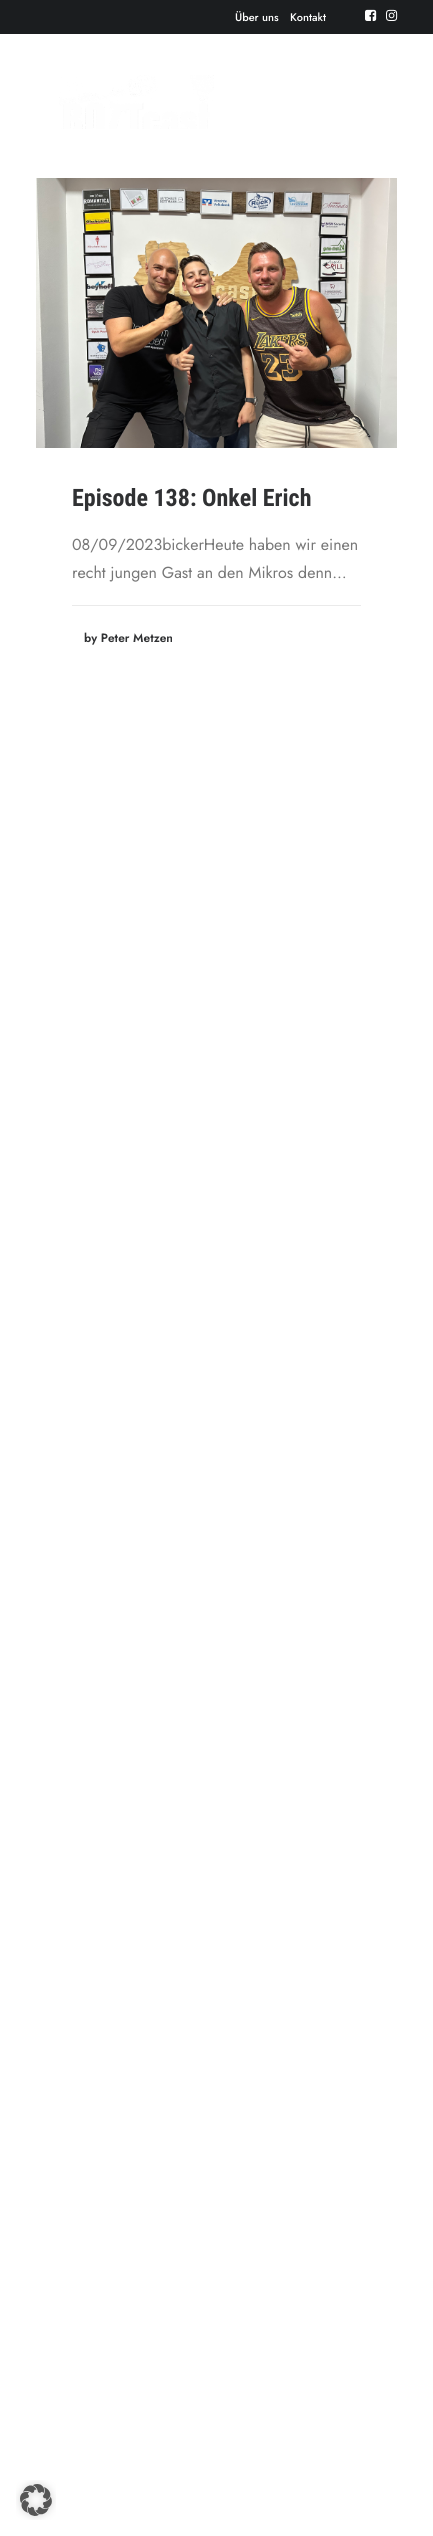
import math
import cairo



def draw_image(context, path, x, y, w, h):
    context.save()
    context.set_source_surface(cairo.ImageSurface.create_from_png(path), x, y)
    context.rectangle(x, y, w, h)
    context.fill()
    context.restore()


def draw(context):
    context.set_source_rgb(1, 1, 1)
    context.paint()
    context.set_source_rgb(27 / 255, 29 / 255, 31 / 255)
    context.rectangle(0, 0, 433, 34)
    context.fill()
    draw_image(context, "images/1.png", 365, 9, 12, 12)
    draw_image(context, "images/2.png", 386, 9, 12, 12)
    draw_image(context, "images/3.png", 59, 75, 155, 54)
    draw_image(context, "images/4.png", 36, 178, 361, 270)
    context.set_source_rgb(234 / 255, 234 / 255, 234 / 255)
    context.rectangle(72, 605, 289, 1)
    context.fill()
    draw_image(context, "images/5.png", 16, 2480, 40, 40)
    context.select_font_face("Jost Medium")
    context.set_font_size(11)
    context.set_source_rgb(1, 1, 1)
    context.move_to(235, 21)
    context.show_text("Über uns")
    context.move_to(290, 21)
    context.show_text("Kontakt")
    context.select_font_face("Roboto Condensed", cairo.FontSlant.NORMAL, cairo.FontWeight.BOLD)
    context.set_font_size(24)
    context.set_source_rgb(48 / 255, 49 / 255, 51 / 255)
    context.move_to(72, 506)
    context.show_text("Episode 138: Onkel Erich")
    context.select_font_face("Jost")
    context.set_font_size(16)
    context.set_source_rgb(119 / 255, 119 / 255, 119 / 255)
    context.move_to(72, 550)
    context.show_text("08/09/2023bickerHeute haben wir einen")
    context.move_to(72, 578)
    context.show_text("recht jungen Gast an den Mikros denn…")
    context.select_font_face("Jost SemiBold")
    context.set_font_size(12)
    context.set_source_rgb(48 / 255, 49 / 255, 51 / 255)
    context.move_to(84, 642)
    context.show_text("by Peter Metzen")


surface = cairo.ImageSurface(cairo.Format.RGB24, 433, 2536)
context = cairo.Context(surface)
options = cairo.FontOptions()
options.set_hint_metrics(cairo.HintMetrics.OFF)
options.set_hint_style(cairo.HintStyle.NONE)
context.set_font_options(options)
context.set_miter_limit(4)
draw(context)
surface.write_to_png("out.png")
